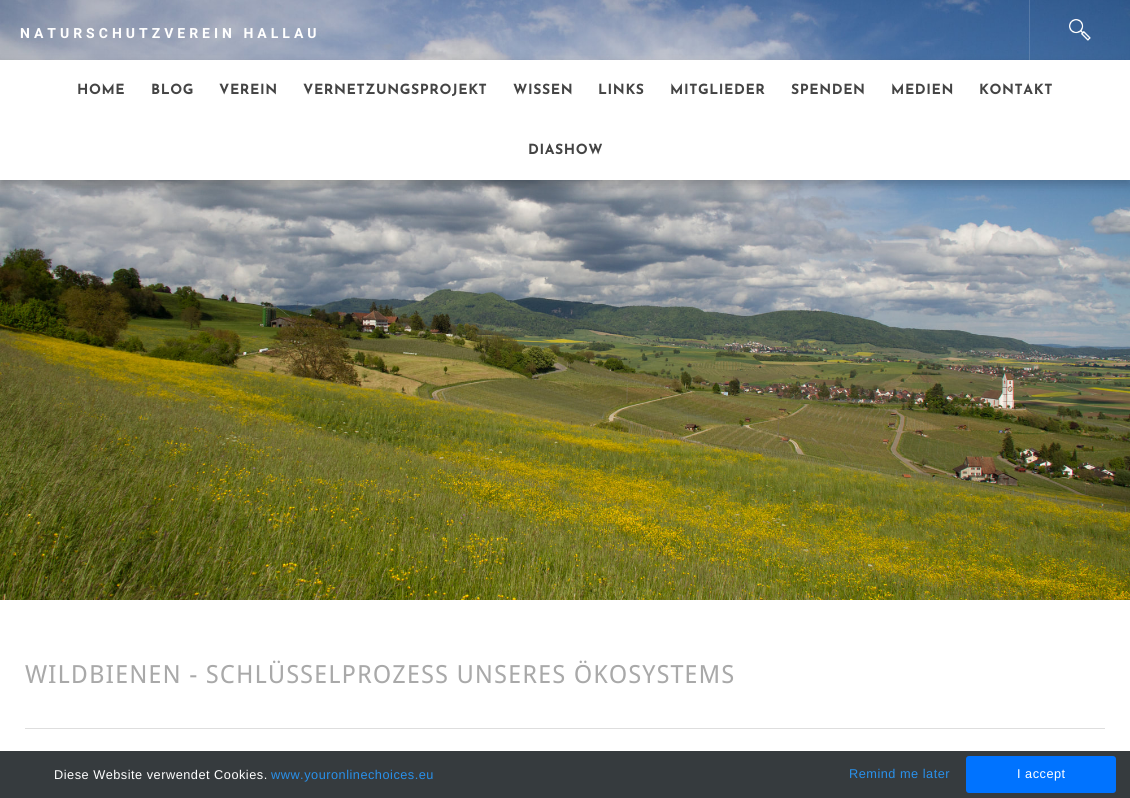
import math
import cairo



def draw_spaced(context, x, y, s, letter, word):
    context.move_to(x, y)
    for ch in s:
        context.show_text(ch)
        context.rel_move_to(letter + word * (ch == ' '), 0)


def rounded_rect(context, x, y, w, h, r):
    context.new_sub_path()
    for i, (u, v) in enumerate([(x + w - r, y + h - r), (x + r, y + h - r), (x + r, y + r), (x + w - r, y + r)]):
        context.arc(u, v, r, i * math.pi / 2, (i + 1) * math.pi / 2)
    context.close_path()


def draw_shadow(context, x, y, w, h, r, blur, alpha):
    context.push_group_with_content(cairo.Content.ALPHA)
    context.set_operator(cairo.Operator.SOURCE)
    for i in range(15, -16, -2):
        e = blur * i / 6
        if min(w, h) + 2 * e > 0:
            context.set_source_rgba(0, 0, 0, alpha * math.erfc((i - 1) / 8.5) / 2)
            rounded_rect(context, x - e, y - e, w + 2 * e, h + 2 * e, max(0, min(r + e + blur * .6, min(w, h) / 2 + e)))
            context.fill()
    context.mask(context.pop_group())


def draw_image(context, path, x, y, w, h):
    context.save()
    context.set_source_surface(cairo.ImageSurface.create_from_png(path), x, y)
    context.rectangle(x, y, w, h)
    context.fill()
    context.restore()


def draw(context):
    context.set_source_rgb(1, 1, 1)
    context.paint()
    draw_image(context, "images/1.png", 0, 0, 1130, 600)
    context.set_source_rgba(1, 1, 1, 0.15)
    context.rectangle(1029, 0, 1, 60)
    context.fill()
    draw_image(context, "images/2.png", 1069, 19, 22, 22)
    context.set_source_rgb(0, 0, 0)
    draw_shadow(context, 0, 65, 1130, 120, 0, 5, 0.2)
    context.set_source_rgb(1, 1, 1)
    context.rectangle(0, 60, 1130, 120)
    context.fill()
    context.set_source_rgb(222 / 255, 222 / 255, 222 / 255)
    context.rectangle(25, 728, 1080, 1)
    context.fill()
    context.set_source_rgb(54 / 255, 59 / 255, 62 / 255)
    context.rectangle(0, 751, 1130, 47)
    context.fill()
    context.set_source_rgb(0, 115 / 255, 1)
    rounded_rect(context, 966, 756, 150, 37, 3)
    context.fill()
    context.select_font_face("Roboto", cairo.FontSlant.NORMAL, cairo.FontWeight.BOLD)
    context.set_font_size(14)
    context.set_source_rgb(1, 1, 1)
    draw_spaced(context, 20, 38, "NATURSCHUTZVEREIN HALLAU", 4, 0)
    context.select_font_face("Josefin Sans Thin")
    context.set_source_rgb(68 / 255, 68 / 255, 68 / 255)
    draw_spaced(context, 77, 94, "HOME", 0.6, 0)
    draw_spaced(context, 151, 94, "BLOG", 0.6, 0)
    draw_spaced(context, 219, 94, "VEREIN", 0.6, 0)
    draw_spaced(context, 303, 94, "VERNETZUNGSPROJEKT", 0.6, 0)
    draw_spaced(context, 513, 94, "WISSEN", 0.6, 0)
    draw_spaced(context, 598, 94, "LINKS", 0.6, 0)
    draw_spaced(context, 670, 94, "MITGLIEDER", 0.6, 0)
    draw_spaced(context, 791, 94, "SPENDEN", 0.6, 0)
    draw_spaced(context, 891, 94, "MEDIEN", 0.6, 0)
    draw_spaced(context, 979, 94, "KONTAKT", 0.6, 0)
    draw_spaced(context, 528, 154, "DIASHOW", 0.6, 0)
    context.select_font_face("Droid Sans")
    context.set_font_size(25)
    context.set_source_rgb(169 / 255, 169 / 255, 169 / 255)
    draw_spaced(context, 25, 683, "WILDBIENEN - SCHLÜSSELPROZESS UNSERES ÖKOSYSTEMS", 1, 0)
    context.select_font_face("Liberation Sans")
    context.set_font_size(12.75)
    context.set_source_rgb(1, 1, 1)
    draw_spaced(context, 54, 779, "Diese Website verwendet Cookies.", 0.5, 0)
    context.set_source_rgb(41 / 255, 144 / 255, 234 / 255)
    draw_spaced(context, 271, 779, "www.youronlinechoices.eu", 0.5, 0)
    draw_spaced(context, 849, 778, "Remind me later", 0.5, 0)
    context.set_source_rgb(1, 1, 1)
    draw_spaced(context, 1017, 778, "I accept", 0.5, 0)


surface = cairo.ImageSurface(cairo.Format.RGB24, 1130, 798)
context = cairo.Context(surface)
options = cairo.FontOptions()
options.set_hint_metrics(cairo.HintMetrics.OFF)
options.set_hint_style(cairo.HintStyle.NONE)
context.set_font_options(options)
context.set_miter_limit(4)
draw(context)
surface.write_to_png("out.png")
